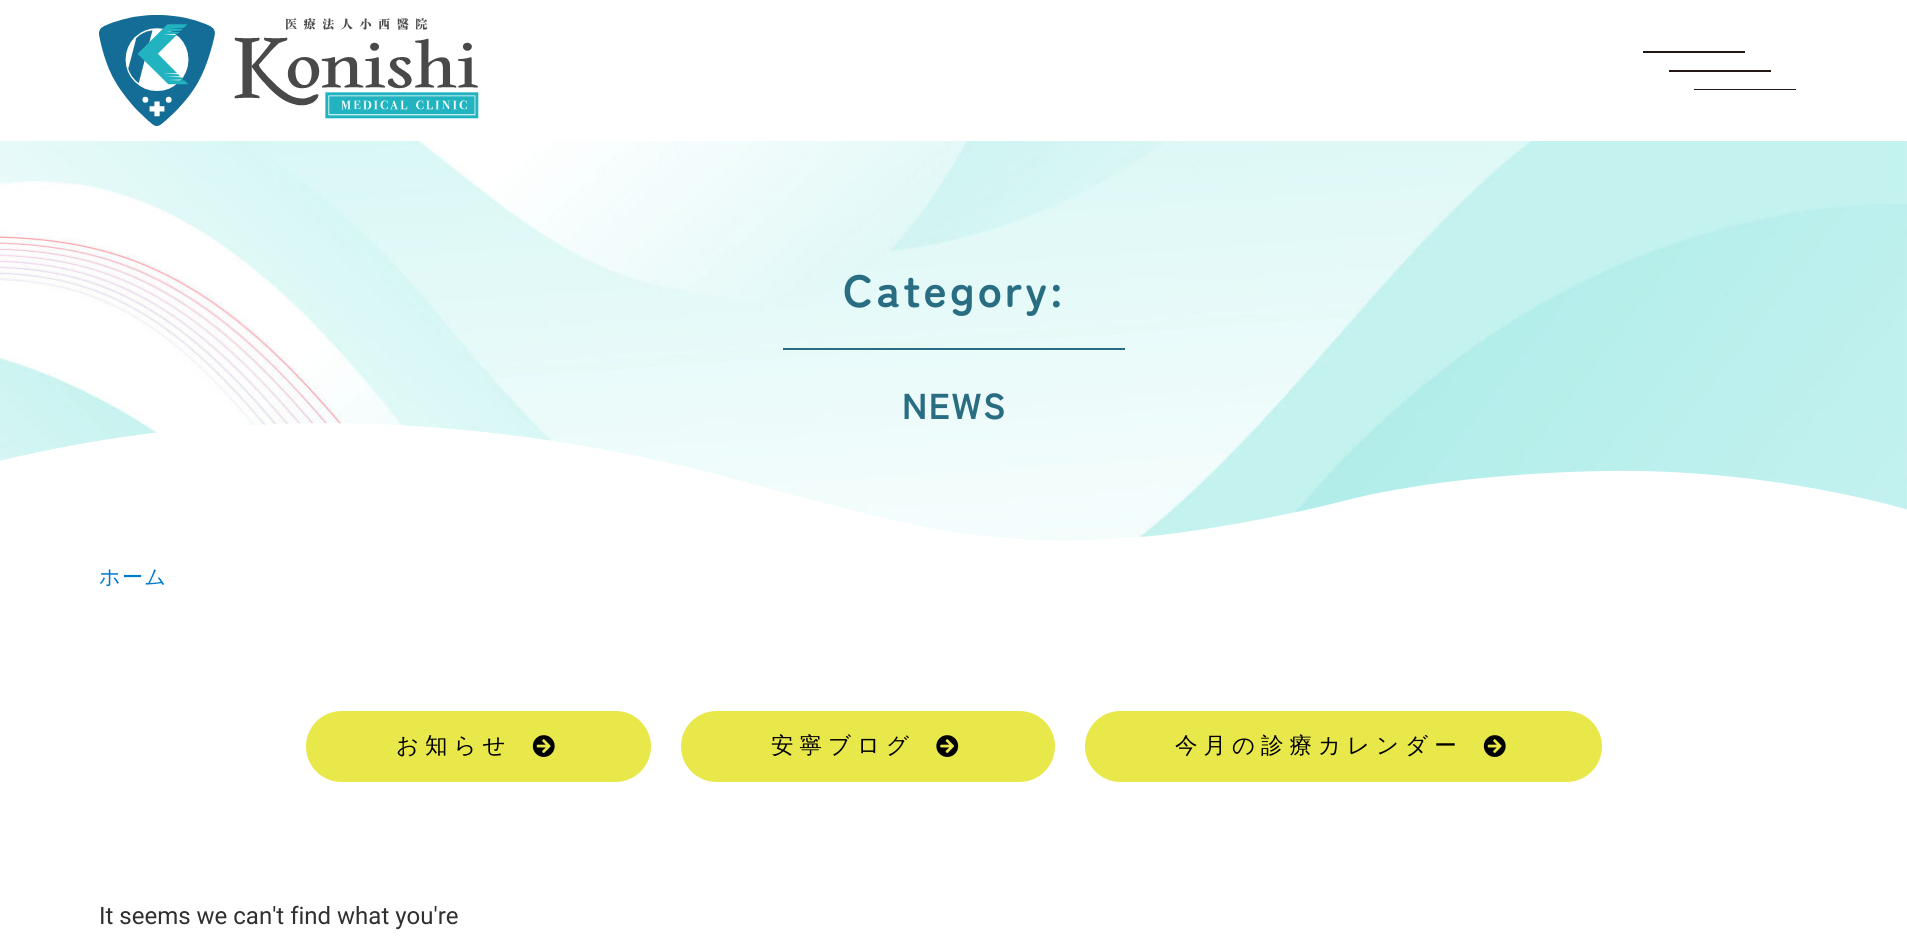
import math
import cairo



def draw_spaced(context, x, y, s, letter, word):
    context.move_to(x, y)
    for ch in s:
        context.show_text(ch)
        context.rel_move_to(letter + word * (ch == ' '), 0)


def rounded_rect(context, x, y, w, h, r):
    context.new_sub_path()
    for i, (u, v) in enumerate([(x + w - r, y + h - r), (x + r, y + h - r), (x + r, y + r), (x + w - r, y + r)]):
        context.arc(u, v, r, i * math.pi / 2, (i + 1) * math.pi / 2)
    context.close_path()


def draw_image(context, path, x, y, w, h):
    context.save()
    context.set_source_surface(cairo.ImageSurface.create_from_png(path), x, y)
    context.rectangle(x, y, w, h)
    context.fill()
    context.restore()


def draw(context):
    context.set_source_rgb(1, 1, 1)
    context.paint()
    draw_image(context, "images/1.png", 99, 15, 380, 111)
    context.set_source_rgb(35 / 255, 24 / 255, 21 / 255)
    context.rectangle(1643, 51, 102, 2)
    context.fill()
    context.rectangle(1669, 70, 102, 2)
    context.fill()
    context.rectangle(1694, 89, 102, 1)
    context.fill()
    draw_image(context, "images/2.png", 0, 141, 1907, 400)
    context.set_source_rgb(40 / 255, 109 / 255, 129 / 255)
    context.rectangle(783, 348, 342, 2)
    context.fill()
    context.set_source_rgb(1, 1, 1)
    context.new_path()
    context.move_to(1103, 539)
    context.curve_to(1060, 543, 1005, 539, 959, 533)
    context.curve_to(914, 527, 824, 503, 767, 488)
    context.curve_to(622, 447, 512, 432, 399, 425)
    context.curve_to(354, 423, 306, 421, 202, 428)
    context.curve_to(97, 436, -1, 461, -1, 461)
    context.line_to(-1, 548)
    context.line_to(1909, 548)
    context.line_to(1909, 510)
    context.curve_to(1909, 510, 1771, 468, 1606, 471)
    context.curve_to(1532, 472, 1429, 480, 1351, 499)
    context.curve_to(1310, 510, 1251, 522, 1198, 530)
    context.curve_to(1146, 538, 1123, 538, 1103, 539)
    context.close_path()
    context.fill()
    context.set_source_rgb(233 / 255, 232 / 255, 75 / 255)
    rounded_rect(context, 306, 711, 345, 71, 35.5)
    context.fill()
    draw_image(context, "images/3.png", 532, 735, 23, 22)
    rounded_rect(context, 681, 711, 374, 71, 35.5)
    context.fill()
    draw_image(context, "images/4.png", 936, 735, 23, 22)
    rounded_rect(context, 1085, 711, 517, 71, 35.5)
    context.fill()
    draw_image(context, "images/3.png", 1483, 735, 23, 22)
    context.select_font_face("Zen Maru Gothic", cairo.FontSlant.NORMAL, cairo.FontWeight.BOLD)
    context.set_font_size(45)
    context.set_source_rgb(40 / 255, 109 / 255, 129 / 255)
    draw_spaced(context, 843, 307, "Category:", 3, 0)
    context.select_font_face("Zen Kaku Gothic New", cairo.FontSlant.NORMAL, cairo.FontWeight.BOLD)
    context.set_font_size(36)
    draw_spaced(context, 902, 419, "NEWS", 1.5, 0)
    context.select_font_face("WenQuanYi Zen Hei Medium")
    context.set_font_size(21)
    context.set_source_rgb(0, 122 / 255, 204 / 255)
    draw_spaced(context, 99, 584, "ホーム", 1.5, 0)
    context.set_font_size(22.5)
    context.set_source_rgb(0, 0, 0)
    draw_spaced(context, 396, 753, "お知らせ", 6, 0)
    draw_spaced(context, 771, 753, "安寧ブログ", 6, 0)
    draw_spaced(context, 1175, 753, "今月の診療カレンダー", 6, 0)
    context.select_font_face("Roboto")
    context.set_font_size(24)
    context.set_source_rgb(48 / 255, 48 / 255, 48 / 255)
    context.move_to(99, 924)
    context.show_text("It seems we can't find what you're")


surface = cairo.ImageSurface(cairo.Format.RGB24, 1907, 947)
context = cairo.Context(surface)
options = cairo.FontOptions()
options.set_hint_metrics(cairo.HintMetrics.OFF)
options.set_hint_style(cairo.HintStyle.NONE)
context.set_font_options(options)
context.set_miter_limit(4)
draw(context)
surface.write_to_png("out.png")
